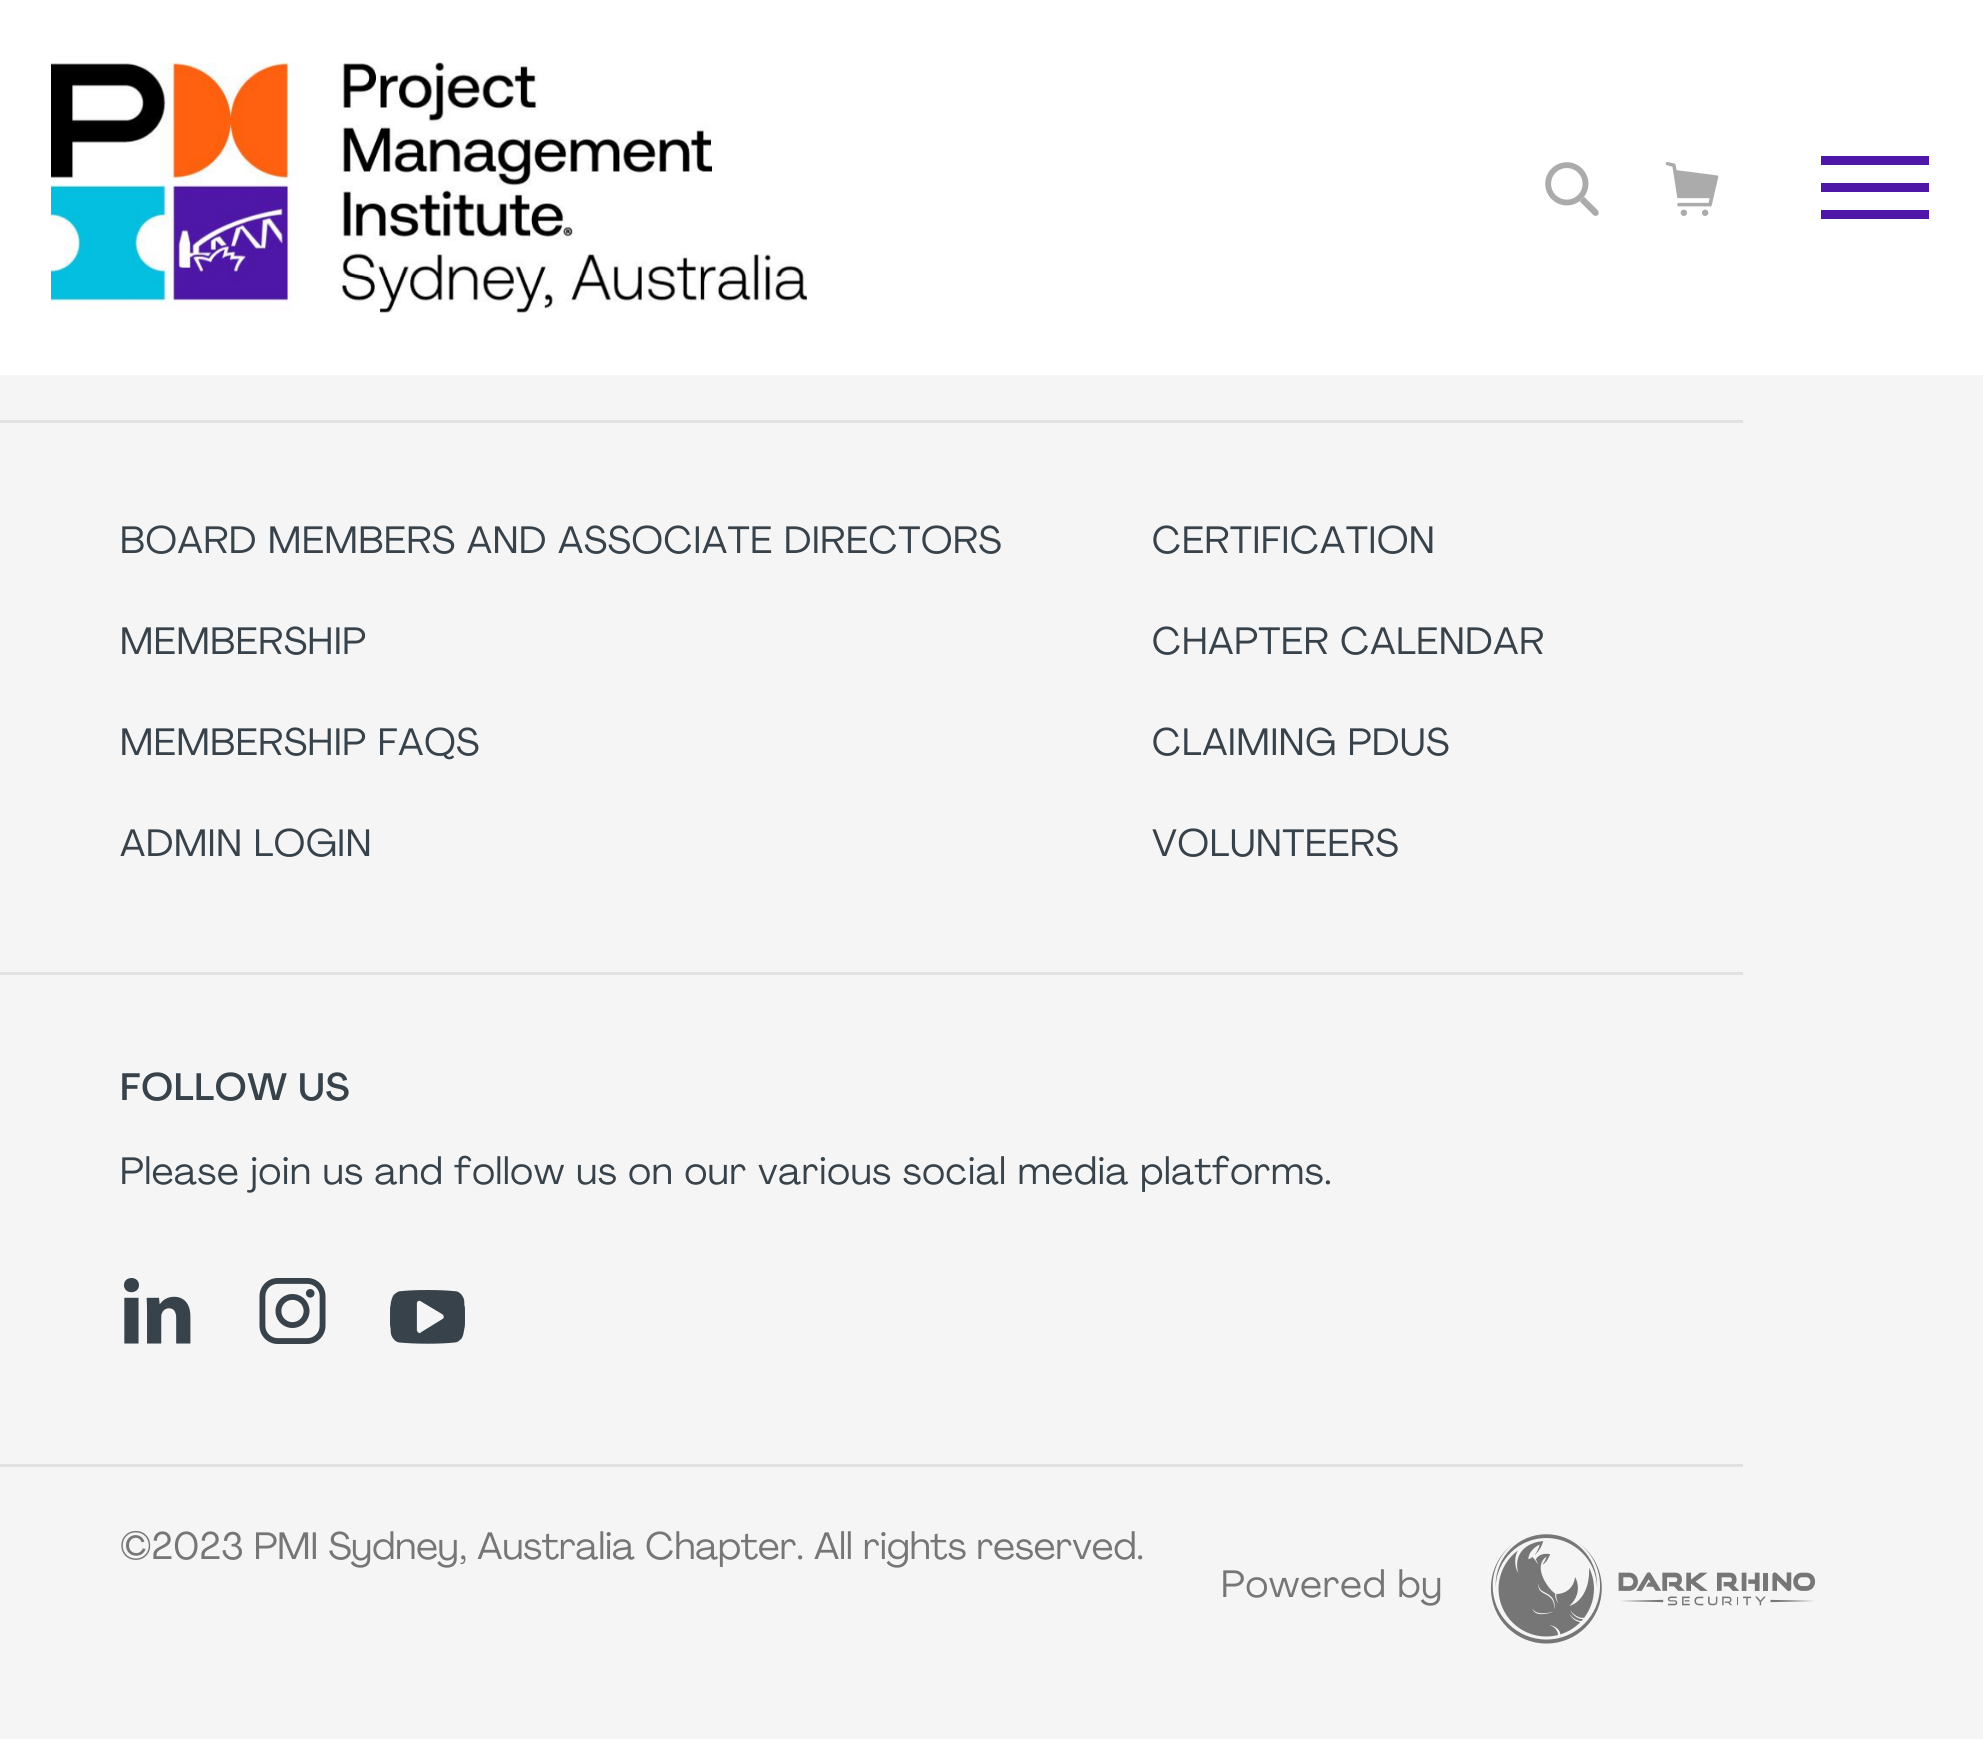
import math
import cairo



def draw_spaced(context, x, y, s, letter, word):
    context.move_to(x, y)
    for ch in s:
        context.show_text(ch)
        context.rel_move_to(letter + word * (ch == ' '), 0)


def draw_image(context, path, x, y, w, h):
    context.save()
    context.set_source_surface(cairo.ImageSurface.create_from_png(path), x, y)
    context.rectangle(x, y, w, h)
    context.fill()
    context.restore()


def draw(context):
    context.set_source_rgb(245 / 255, 245 / 255, 245 / 255)
    context.paint()
    context.set_source_rgb(1, 1, 1)
    context.rectangle(0, 0, 1983, 375)
    context.fill()
    draw_image(context, "images/1.png", 51, 62, 756, 251)
    draw_image(context, "images/2.png", 1545, 162, 54, 54)
    draw_image(context, "images/3.png", 1665, 162, 54, 54)
    context.set_source_rgb(79 / 255, 23 / 255, 167 / 255)
    context.rectangle(1821, 156, 108, 9)
    context.fill()
    context.rectangle(1821, 183, 108, 9)
    context.fill()
    context.rectangle(1821, 210, 108, 9)
    context.fill()
    context.set_source_rgb(225 / 255, 225 / 255, 225 / 255)
    context.rectangle(0, 420, 1743, 3)
    context.fill()
    context.rectangle(0, 972, 1743, 3)
    context.fill()
    context.rectangle(0, 1464, 1743, 3)
    context.fill()
    draw_image(context, "images/4.png", 124, 1278, 67, 66)
    draw_image(context, "images/5.png", 259, 1278, 67, 66)
    draw_image(context, "images/6.png", 390, 1290, 75, 54)
    draw_image(context, "images/7.png", 1490, 1534, 326, 110)
    context.select_font_face("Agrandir")
    context.set_font_size(37.8)
    context.set_source_rgb(55 / 255, 66 / 255, 74 / 255)
    draw_spaced(context, 120, 553, "BOARD MEMBERS AND ASSOCIATE DIRECTORS", 0.75, 0)
    draw_spaced(context, 120, 654, "MEMBERSHIP", 0.75, 0)
    draw_spaced(context, 120, 755, "MEMBERSHIP FAQS", 0.75, 0)
    draw_spaced(context, 120, 856, "ADMIN LOGIN", 0.75, 0)
    draw_spaced(context, 1152, 553, "CERTIFICATION", 0.75, 0)
    draw_spaced(context, 1152, 654, "CHAPTER CALENDAR", 0.75, 0)
    draw_spaced(context, 1152, 755, "CLAIMING PDUS", 0.75, 0)
    draw_spaced(context, 1152, 856, "VOLUNTEERS", 0.75, 0)
    context.select_font_face("Agrandir Medium")
    draw_spaced(context, 120, 1100, "FOLLOW US", 0.75, 0)
    context.select_font_face("Agrandir")
    draw_spaced(context, 120, 1184, "Please join us and follow us on our various social media platforms.", 0.75, 0)
    context.set_source_rgb(118 / 255, 118 / 255, 118 / 255)
    context.move_to(120, 1559)
    context.show_text("©2023 PMI Sydney, Australia Chapter. All rights reserved.")
    draw_spaced(context, 1221, 1597, "Powered by", 0.75, 0)


surface = cairo.ImageSurface(cairo.Format.RGB24, 1983, 1739)
context = cairo.Context(surface)
options = cairo.FontOptions()
options.set_hint_metrics(cairo.HintMetrics.OFF)
options.set_hint_style(cairo.HintStyle.NONE)
context.set_font_options(options)
context.set_miter_limit(4)
draw(context)
surface.write_to_png("out.png")
